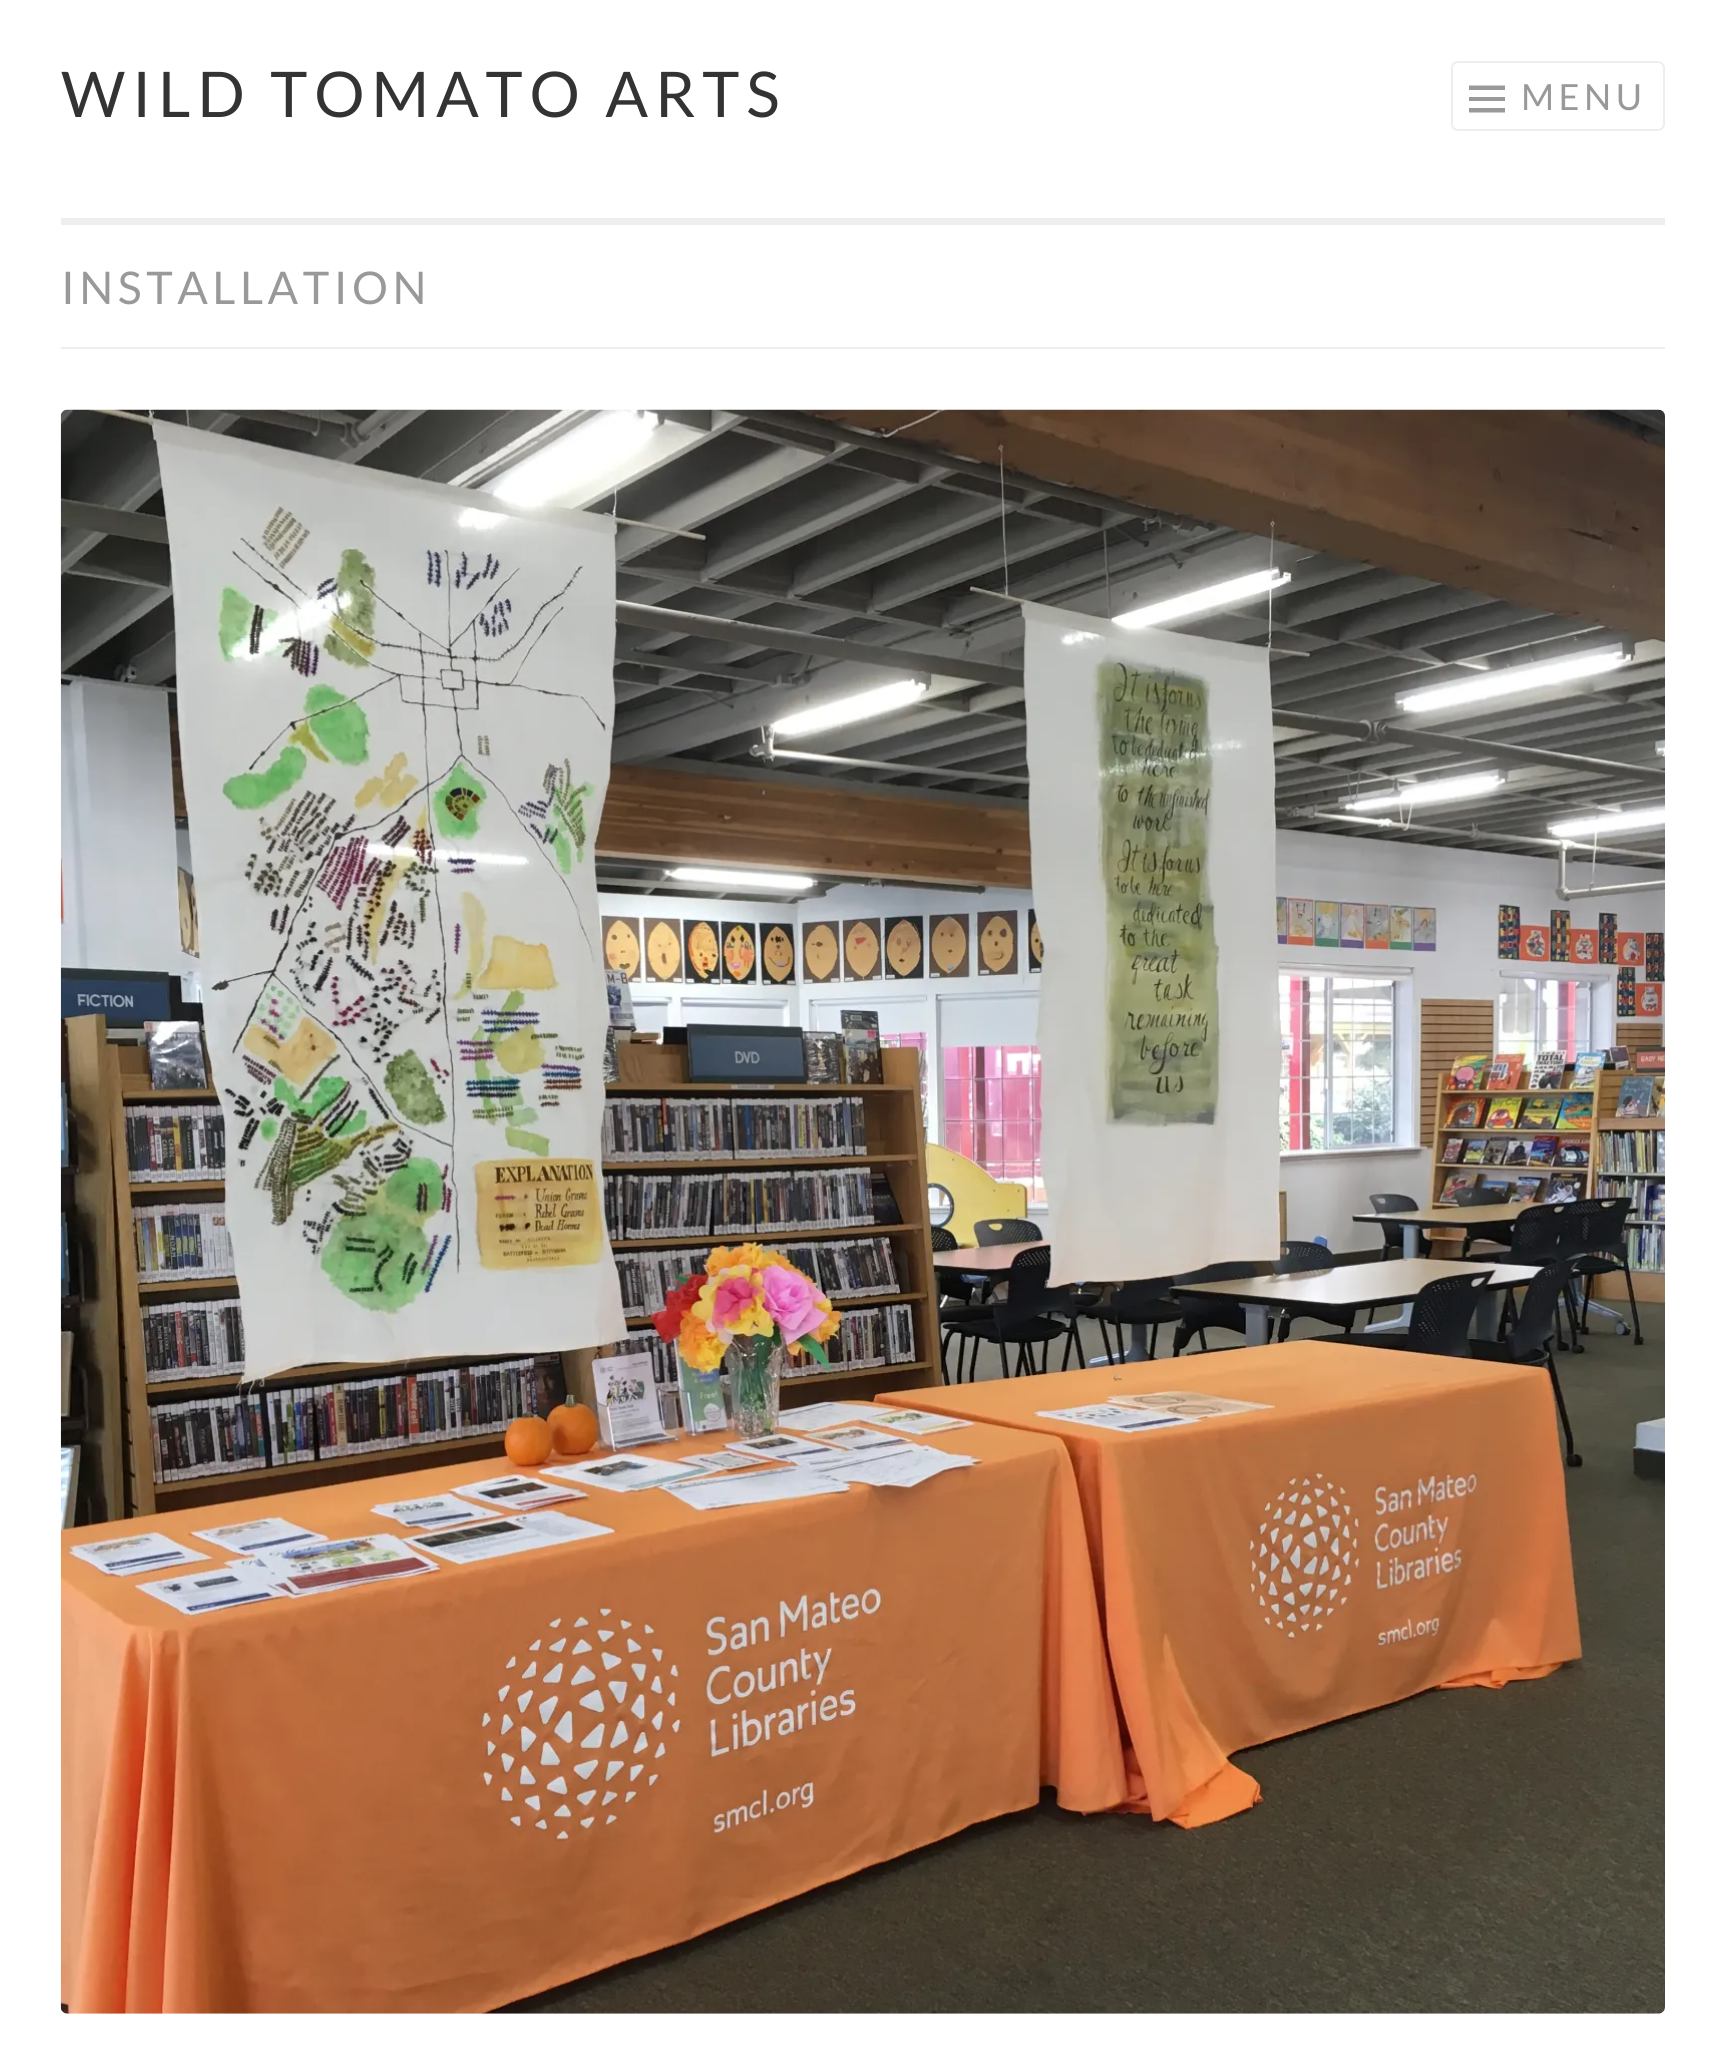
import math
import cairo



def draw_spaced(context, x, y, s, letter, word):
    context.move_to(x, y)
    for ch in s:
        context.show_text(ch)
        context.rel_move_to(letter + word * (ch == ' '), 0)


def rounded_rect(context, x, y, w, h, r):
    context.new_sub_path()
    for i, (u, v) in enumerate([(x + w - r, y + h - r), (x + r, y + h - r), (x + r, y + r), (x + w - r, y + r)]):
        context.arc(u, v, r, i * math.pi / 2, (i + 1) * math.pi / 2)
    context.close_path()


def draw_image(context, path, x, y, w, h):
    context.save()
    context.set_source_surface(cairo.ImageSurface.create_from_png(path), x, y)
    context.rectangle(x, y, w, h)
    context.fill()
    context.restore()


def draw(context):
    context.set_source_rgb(1, 1, 1)
    context.paint()
    context.set_source_rgb(238 / 255, 238 / 255, 238 / 255)
    context.rectangle(61, 218, 1604, 7)
    context.fill()
    rounded_rect(context, 1452, 62, 212, 68, 6)
    context.stroke()
    context.set_source_rgb(153 / 255, 153 / 255, 153 / 255)
    context.new_path()
    context.move_to(1469, 112.5)
    context.line_to(1469, 108)
    context.line_to(1505, 108)
    context.line_to(1505, 112.5)
    context.close_path()
    context.move_to(1469, 85.5)
    context.line_to(1505, 85.5)
    context.line_to(1505, 90)
    context.line_to(1469, 90)
    context.close_path()
    context.move_to(1469, 101)
    context.line_to(1469, 97)
    context.line_to(1505, 97)
    context.line_to(1505, 101)
    context.close_path()
    context.fill()
    context.set_source_rgb(238 / 255, 238 / 255, 238 / 255)
    context.rectangle(61, 347, 1604, 2)
    context.fill()
    draw_image(context, "images/1.png", 60, 409, 1605, 1605)
    context.select_font_face("Lato")
    context.set_font_size(63)
    context.set_source_rgb(51 / 255, 51 / 255, 51 / 255)
    draw_spaced(context, 61, 117, "WILD TOMATO ARTS", 6.75, 0)
    context.set_font_size(36)
    context.set_source_rgb(153 / 255, 153 / 255, 153 / 255)
    draw_spaced(context, 1521, 110, "MENU", 4.5, 0)
    context.set_font_size(45)
    draw_spaced(context, 61, 304, "INSTALLATION", 4.5, 0)


surface = cairo.ImageSurface(cairo.Format.RGB24, 1724, 2065)
context = cairo.Context(surface)
options = cairo.FontOptions()
options.set_hint_metrics(cairo.HintMetrics.OFF)
options.set_hint_style(cairo.HintStyle.NONE)
context.set_font_options(options)
context.set_miter_limit(4)
draw(context)
surface.write_to_png("out.png")
